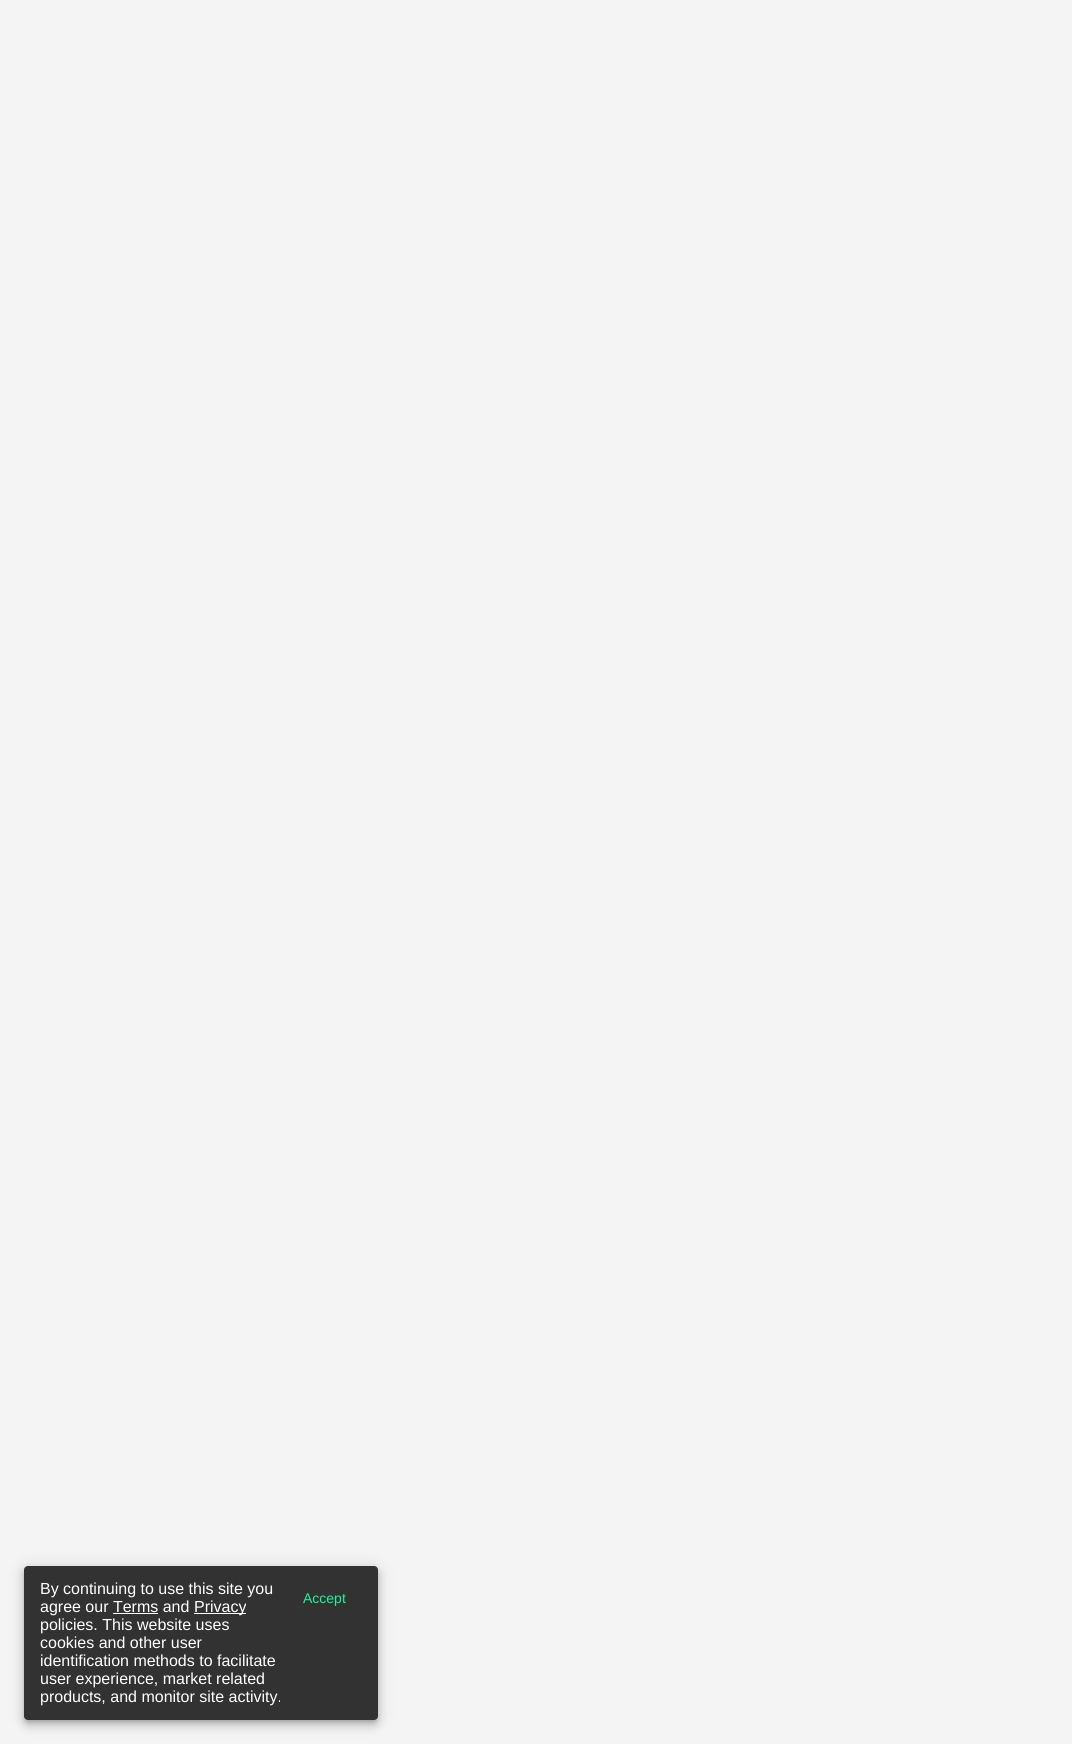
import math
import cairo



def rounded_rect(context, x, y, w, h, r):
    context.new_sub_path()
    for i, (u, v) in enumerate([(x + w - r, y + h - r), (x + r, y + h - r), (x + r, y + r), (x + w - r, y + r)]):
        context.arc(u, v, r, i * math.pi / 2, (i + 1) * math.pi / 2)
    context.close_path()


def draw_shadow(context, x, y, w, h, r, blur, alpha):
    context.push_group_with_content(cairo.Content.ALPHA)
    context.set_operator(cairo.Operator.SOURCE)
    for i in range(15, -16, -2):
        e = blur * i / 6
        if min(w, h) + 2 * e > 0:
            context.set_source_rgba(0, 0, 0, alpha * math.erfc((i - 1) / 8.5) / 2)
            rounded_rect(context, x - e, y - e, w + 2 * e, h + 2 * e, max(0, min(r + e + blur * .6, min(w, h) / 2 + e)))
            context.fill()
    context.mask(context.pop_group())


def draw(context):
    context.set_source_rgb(244 / 255, 244 / 255, 244 / 255)
    context.paint()
    context.set_source_rgb(0, 0, 0)
    draw_shadow(context, 24, 1567, 354, 154, 4, 9, 0.12)
    draw_shadow(context, 24, 1572, 354, 154, 4, 5, 0.14)
    draw_shadow(context, 25, 1570, 352, 152, 3, 2.5, 0.2)
    context.set_source_rgb(50 / 255, 50 / 255, 50 / 255)
    rounded_rect(context, 24, 1566, 354, 154, 4)
    context.fill()
    context.set_source_rgb(1, 1, 1)
    context.rectangle(194, 1613, 52, 1)
    context.fill()
    context.rectangle(113, 1613, 45, 1)
    context.fill()
    context.select_font_face("Liberation Sans")
    context.set_font_size(16)
    context.move_to(40, 1594)
    context.show_text("By continuing to use this site you")
    context.move_to(40, 1612)
    context.show_text("agree our Terms and")
    context.move_to(194, 1612)
    context.show_text("Privacy")
    context.move_to(40, 1630)
    context.show_text("policies. This website uses")
    context.move_to(40, 1648)
    context.show_text("cookies and other user")
    context.move_to(40, 1666)
    context.show_text("identification methods to facilitate")
    context.move_to(40, 1684)
    context.show_text("user experience, market related")
    context.move_to(40, 1702)
    context.show_text("products, and monitor site activity.")
    context.set_font_size(14)
    context.set_source_rgb(28 / 255, 246 / 255, 156 / 255)
    context.move_to(303, 1603)
    context.show_text("Accept")


surface = cairo.ImageSurface(cairo.Format.RGB24, 1072, 1744)
context = cairo.Context(surface)
options = cairo.FontOptions()
options.set_hint_metrics(cairo.HintMetrics.OFF)
options.set_hint_style(cairo.HintStyle.NONE)
context.set_font_options(options)
context.set_miter_limit(4)
draw(context)
surface.write_to_png("out.png")
